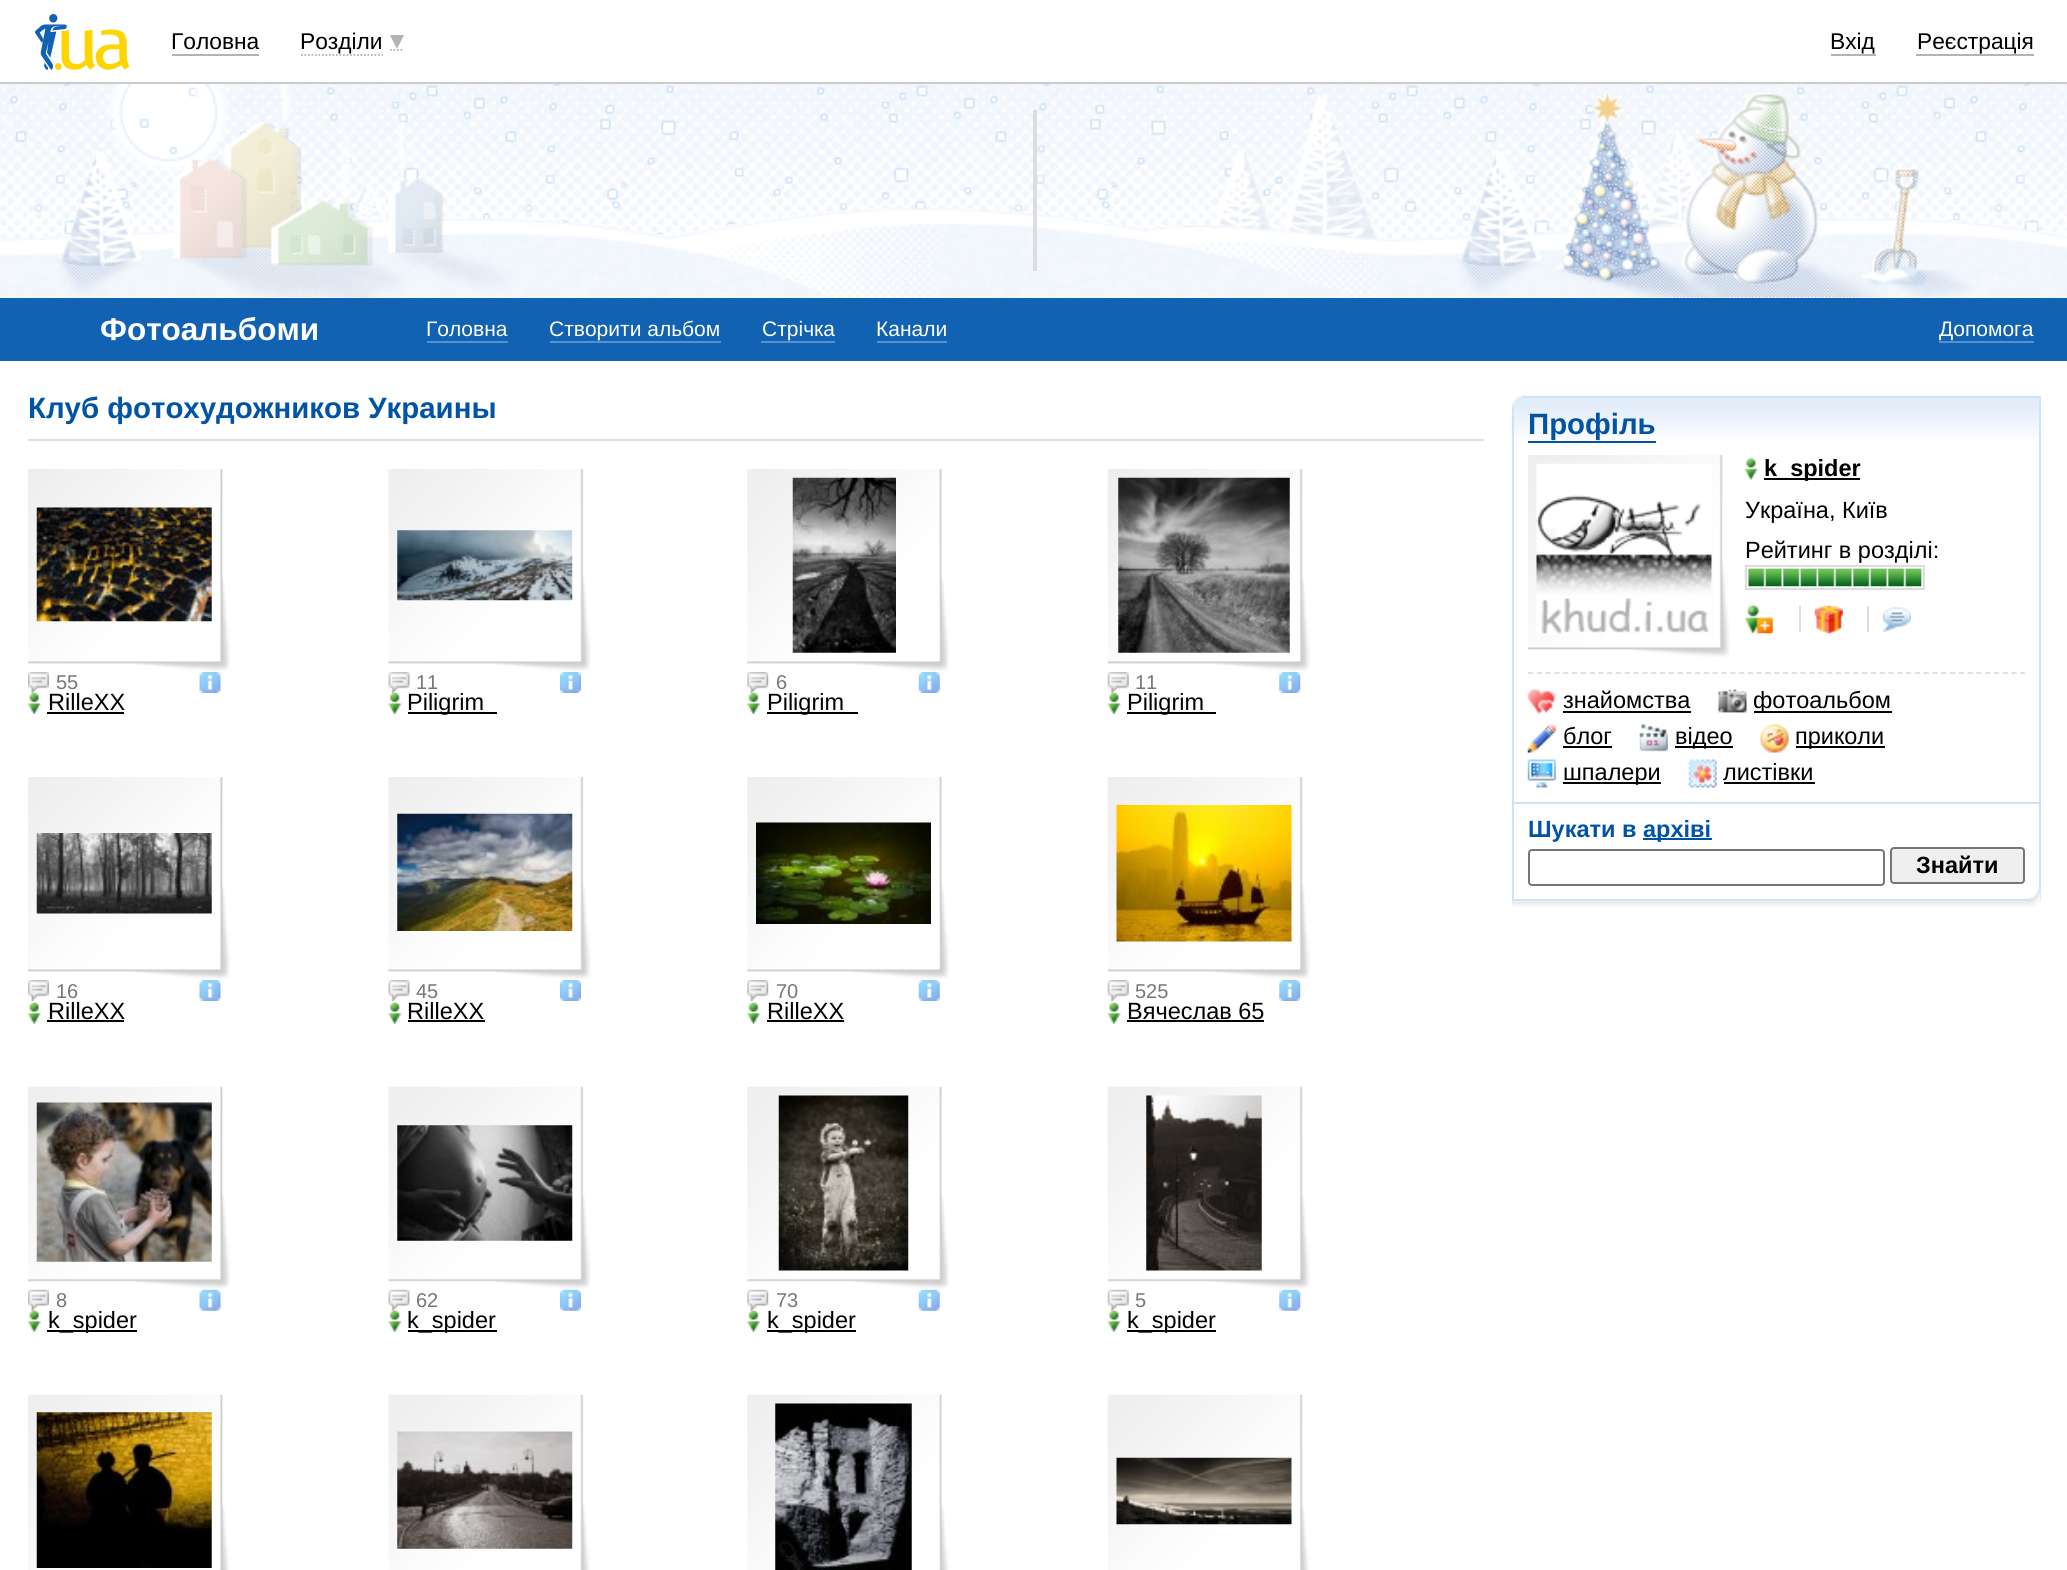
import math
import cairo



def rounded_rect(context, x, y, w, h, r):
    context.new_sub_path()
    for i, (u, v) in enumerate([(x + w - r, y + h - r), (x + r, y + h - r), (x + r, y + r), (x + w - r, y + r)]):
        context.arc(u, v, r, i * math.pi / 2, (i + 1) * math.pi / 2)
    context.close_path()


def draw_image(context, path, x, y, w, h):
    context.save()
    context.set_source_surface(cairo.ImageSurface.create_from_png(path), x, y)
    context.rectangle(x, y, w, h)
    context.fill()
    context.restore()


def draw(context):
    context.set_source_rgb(1, 1, 1)
    context.paint()
    context.set_source_rgb(204 / 255, 204 / 255, 204 / 255)
    context.rectangle(0, 82, 2067, 2)
    context.fill()
    draw_image(context, "images/1.png", 35, 14, 95, 56)
    context.set_source_rgb(179 / 255, 179 / 255, 179 / 255)
    context.rectangle(172, 54, 87, 2)
    context.fill()
    context.new_path()
    context.move_to(301, 55)
    context.line_to(383, 55)
    context.set_line_width(1.8)
    context.set_dash([1.75, 1.75])
    context.stroke()
    context.new_path()
    context.move_to(390, 50)
    context.line_to(404, 50)
    context.stroke()
    context.new_path()
    context.move_to(390, 35)
    context.line_to(404, 35)
    context.line_to(397, 49)
    context.close_path()
    context.fill()
    context.rectangle(1831, 54, 45, 2)
    context.fill()
    context.rectangle(1916, 54, 118, 2)
    context.fill()
    draw_image(context, "images/2.png", 0, 84, 2067, 214)
    context.set_source_rgb(221 / 255, 221 / 255, 221 / 255)
    context.rectangle(1033, 110, 4, 161)
    context.fill()
    context.set_source_rgb(17 / 255, 98 / 255, 179 / 255)
    context.rectangle(0, 298, 2067, 63)
    context.fill()
    context.set_source_rgb(88 / 255, 145 / 255, 202 / 255)
    context.rectangle(427, 341, 81, 2)
    context.fill()
    context.rectangle(550, 341, 171, 2)
    context.fill()
    context.rectangle(761, 341, 74, 2)
    context.fill()
    context.rectangle(877, 341, 70, 2)
    context.fill()
    context.rectangle(1939, 341, 95, 2)
    context.fill()
    context.set_source_rgb(221 / 255, 221 / 255, 221 / 255)
    context.rectangle(28, 439, 1456, 2)
    context.fill()
    draw_image(context, "images/3.png", 28, 469, 202, 202)
    draw_image(context, "images/4.png", 36, 507, 176, 115)
    draw_image(context, "images/5.png", 28, 672, 21, 21)
    draw_image(context, "images/6.png", 199, 672, 22, 21)
    draw_image(context, "images/7.png", 28, 693, 13, 21)
    context.set_source_rgb(0, 0, 0)
    context.rectangle(47, 712, 77, 2)
    context.fill()
    draw_image(context, "images/8.png", 388, 469, 203, 202)
    draw_image(context, "images/9.png", 397, 530, 176, 71)
    draw_image(context, "images/11.png", 560, 672, 21, 21)
    draw_image(context, "images/12.png", 388, 693, 14, 21)
    context.rectangle(408, 712, 89, 2)
    context.fill()
    draw_image(context, "images/13.png", 747, 469, 202, 202)
    draw_image(context, "images/14.png", 792, 477, 104, 176)
    draw_image(context, "images/16.png", 918, 672, 22, 21)
    draw_image(context, "images/17.png", 747, 693, 13, 21)
    context.rectangle(767, 712, 91, 2)
    context.fill()
    draw_image(context, "images/18.png", 1107, 469, 203, 202)
    draw_image(context, "images/19.png", 1118, 477, 172, 176)
    draw_image(context, "images/21.png", 1279, 672, 22, 21)
    draw_image(context, "images/22.png", 1107, 693, 14, 21)
    context.rectangle(1127, 712, 89, 2)
    context.fill()
    draw_image(context, "images/3.png", 28, 777, 202, 202)
    draw_image(context, "images/23.png", 36, 833, 176, 81)
    draw_image(context, "images/5.png", 28, 980, 21, 21)
    draw_image(context, "images/6.png", 199, 980, 22, 21)
    draw_image(context, "images/24.png", 28, 1002, 13, 22)
    context.rectangle(47, 1020, 77, 2)
    context.fill()
    draw_image(context, "images/8.png", 388, 777, 203, 202)
    draw_image(context, "images/25.png", 397, 813, 176, 118)
    draw_image(context, "images/10.png", 388, 980, 22, 21)
    draw_image(context, "images/11.png", 560, 980, 21, 21)
    draw_image(context, "images/26.png", 388, 1002, 14, 22)
    context.rectangle(408, 1020, 77, 2)
    context.fill()
    draw_image(context, "images/13.png", 747, 777, 202, 202)
    draw_image(context, "images/27.png", 756, 822, 175, 102)
    draw_image(context, "images/15.png", 747, 980, 22, 21)
    draw_image(context, "images/16.png", 918, 980, 22, 21)
    draw_image(context, "images/28.png", 747, 1002, 13, 22)
    context.rectangle(767, 1020, 77, 2)
    context.fill()
    draw_image(context, "images/18.png", 1107, 777, 203, 202)
    draw_image(context, "images/29.png", 1116, 805, 176, 137)
    draw_image(context, "images/20.png", 1107, 980, 22, 21)
    draw_image(context, "images/21.png", 1279, 980, 22, 21)
    draw_image(context, "images/30.png", 1107, 1002, 14, 22)
    context.rectangle(1127, 1020, 137, 2)
    context.fill()
    draw_image(context, "images/31.png", 28, 1086, 202, 203)
    draw_image(context, "images/32.png", 36, 1102, 176, 160)
    draw_image(context, "images/24.png", 28, 1310, 13, 22)
    draw_image(context, "images/33.png", 28, 1289, 21, 22)
    draw_image(context, "images/34.png", 199, 1289, 22, 22)
    context.rectangle(47, 1330, 90, 2)
    context.fill()
    draw_image(context, "images/35.png", 388, 1086, 203, 203)
    draw_image(context, "images/36.png", 397, 1125, 176, 116)
    draw_image(context, "images/38.png", 560, 1289, 21, 22)
    draw_image(context, "images/26.png", 388, 1310, 14, 22)
    context.rectangle(408, 1330, 89, 2)
    context.fill()
    draw_image(context, "images/39.png", 747, 1086, 202, 203)
    draw_image(context, "images/40.png", 778, 1095, 131, 176)
    draw_image(context, "images/42.png", 918, 1289, 22, 22)
    draw_image(context, "images/28.png", 747, 1310, 13, 22)
    context.rectangle(767, 1330, 89, 2)
    context.fill()
    draw_image(context, "images/43.png", 1107, 1086, 203, 203)
    draw_image(context, "images/44.png", 1146, 1095, 116, 176)
    draw_image(context, "images/46.png", 1279, 1289, 22, 22)
    draw_image(context, "images/30.png", 1107, 1310, 14, 22)
    context.rectangle(1127, 1330, 89, 2)
    context.fill()
    draw_image(context, "images/47.png", 28, 1394, 201, 176)
    draw_image(context, "images/48.png", 36, 1412, 176, 156)
    draw_image(context, "images/49.png", 388, 1394, 202, 176)
    draw_image(context, "images/50.png", 397, 1431, 176, 118)
    draw_image(context, "images/51.png", 747, 1394, 202, 176)
    draw_image(context, "images/52.png", 775, 1403, 137, 167)
    draw_image(context, "images/53.png", 1107, 1394, 202, 176)
    draw_image(context, "images/54.png", 1116, 1457, 176, 68)
    draw_image(context, "images/55.png", 1512, 901, 529, 6)
    draw_image(context, "images/57.png", 1514, 398, 525, 43)
    context.rectangle(1513, 397, 527, 503)
    context.set_source_rgb(206 / 255, 227 / 255, 247 / 255)
    context.set_line_width(2)
    context.set_dash([])
    context.stroke()
    draw_image(context, "images/56.png", 1512, 395, 14, 13)
    context.set_source_rgb(0, 83 / 255, 165 / 255)
    context.rectangle(1528, 441, 128, 2)
    context.fill()
    draw_image(context, "images/58.png", 1528, 455, 202, 202)
    draw_image(context, "images/59.png", 1536, 463, 176, 171)
    draw_image(context, "images/60.png", 1744, 458, 14, 22)
    context.set_source_rgb(0, 0, 0)
    context.rectangle(1764, 478, 96, 2)
    context.fill()
    draw_image(context, "images/61.png", 1744, 568, 179, 18)
    context.rectangle(1746, 566, 178, 23)
    context.set_source_rgb(221 / 255, 221 / 255, 221 / 255)
    context.stroke()
    draw_image(context, "images/62.png", 1748, 568, 174, 19)
    draw_image(context, "images/63.png", 1744, 605, 29, 29)
    context.rectangle(1799, 606, 2, 26)
    context.fill()
    draw_image(context, "images/64.png", 1814, 605, 29, 29)
    context.rectangle(1867, 606, 2, 26)
    context.fill()
    draw_image(context, "images/65.png", 1883, 607, 28, 26)
    context.new_path()
    context.move_to(1528, 673)
    context.line_to(2025, 673)
    context.set_line_width(1.8)
    context.set_dash([5.25, 3.54])
    context.stroke()
    draw_image(context, "images/66.png", 1527, 689, 29, 26)
    context.set_source_rgb(0, 0, 0)
    context.rectangle(1563, 711, 128, 2)
    context.fill()
    draw_image(context, "images/67.png", 1718, 689, 29, 24)
    context.rectangle(1754, 711, 138, 2)
    context.fill()
    draw_image(context, "images/68.png", 1527, 724, 29, 29)
    context.rectangle(1563, 746, 49, 2)
    context.fill()
    draw_image(context, "images/69.png", 1639, 724, 29, 28)
    context.rectangle(1675, 746, 58, 2)
    context.fill()
    draw_image(context, "images/70.png", 1760, 724, 29, 29)
    context.rectangle(1796, 746, 89, 2)
    context.fill()
    draw_image(context, "images/71.png", 1527, 759, 29, 29)
    context.rectangle(1563, 782, 98, 2)
    context.fill()
    draw_image(context, "images/72.png", 1688, 759, 29, 29)
    context.rectangle(1724, 782, 91, 2)
    context.fill()
    context.set_source_rgb(206 / 255, 227 / 255, 247 / 255)
    context.rectangle(1514, 802, 525, 2)
    context.fill()
    context.set_source_rgb(0, 83 / 255, 165 / 255)
    context.rectangle(1643, 838, 69, 2)
    context.fill()
    rounded_rect(context, 1529, 850, 355, 35, 3)
    context.set_source_rgb(118 / 255, 118 / 255, 118 / 255)
    context.set_line_width(2)
    context.set_dash([])
    context.stroke()
    context.set_source_rgb(239 / 255, 239 / 255, 239 / 255)
    rounded_rect(context, 1891, 848, 133, 35, 3)
    context.fill_preserve()
    context.set_source_rgb(118 / 255, 118 / 255, 118 / 255)
    context.stroke()
    draw_image(context, "images/73.png", 2026, 887, 15, 20)
    context.select_font_face("Liberation Sans")
    context.set_font_size(22.75)
    context.set_source_rgb(0, 0, 0)
    context.move_to(171, 49)
    context.show_text("Головна")
    context.move_to(300, 49)
    context.show_text("Розділи")
    context.move_to(1830, 49)
    context.show_text("Вхід")
    context.move_to(1917, 49)
    context.show_text("Реєстрація")
    context.select_font_face("Liberation Sans", cairo.FontSlant.NORMAL, cairo.FontWeight.BOLD)
    context.set_font_size(31.5)
    context.set_source_rgb(1, 1, 1)
    context.move_to(100, 340)
    context.show_text("Фотоальбоми")
    context.select_font_face("Liberation Sans")
    context.set_font_size(21)
    context.move_to(426, 336)
    context.show_text("Головна")
    context.move_to(549, 336)
    context.show_text("Створити альбом")
    context.move_to(762, 336)
    context.show_text("Стрічка")
    context.move_to(876, 336)
    context.show_text("Канали")
    context.move_to(1939, 336)
    context.show_text("Допомога")
    context.select_font_face("Liberation Sans", cairo.FontSlant.NORMAL, cairo.FontWeight.BOLD)
    context.set_font_size(29.4)
    context.set_source_rgb(0, 83 / 255, 165 / 255)
    context.move_to(28, 418)
    context.show_text("Клуб фотохудожников Украины")
    context.select_font_face("Liberation Sans")
    context.set_font_size(20)
    context.set_source_rgb(119 / 255, 119 / 255, 119 / 255)
    context.move_to(56, 689)
    context.show_text("55")
    context.set_font_size(23.5)
    context.set_source_rgb(0, 0, 0)
    context.move_to(48, 710)
    context.show_text("RilleXX")
    context.set_font_size(20)
    context.set_source_rgb(119 / 255, 119 / 255, 119 / 255)
    context.move_to(416, 689)
    context.show_text("11")
    context.set_font_size(23.5)
    context.set_source_rgb(0, 0, 0)
    context.move_to(407, 710)
    context.show_text("Piligrim")
    draw_image(context, "images/10.png", 388, 672, 22, 21)
    context.set_font_size(20)
    context.set_source_rgb(119 / 255, 119 / 255, 119 / 255)
    context.move_to(776, 689)
    context.show_text("6")
    context.set_font_size(23.5)
    context.set_source_rgb(0, 0, 0)
    context.move_to(767, 710)
    context.show_text("Piligrim")
    draw_image(context, "images/15.png", 747, 672, 22, 21)
    context.set_font_size(20)
    context.set_source_rgb(119 / 255, 119 / 255, 119 / 255)
    context.move_to(1135, 689)
    context.show_text("11")
    context.set_font_size(23.5)
    context.set_source_rgb(0, 0, 0)
    context.move_to(1127, 710)
    context.show_text("Piligrim")
    draw_image(context, "images/20.png", 1107, 672, 22, 21)
    context.set_font_size(20)
    context.set_source_rgb(119 / 255, 119 / 255, 119 / 255)
    context.move_to(56, 998)
    context.show_text("16")
    context.set_font_size(23.5)
    context.set_source_rgb(0, 0, 0)
    context.move_to(48, 1019)
    context.show_text("RilleXX")
    context.set_font_size(20)
    context.set_source_rgb(119 / 255, 119 / 255, 119 / 255)
    context.move_to(416, 998)
    context.show_text("45")
    context.set_font_size(23.5)
    context.set_source_rgb(0, 0, 0)
    context.move_to(407, 1019)
    context.show_text("RilleXX")
    context.set_font_size(20)
    context.set_source_rgb(119 / 255, 119 / 255, 119 / 255)
    context.move_to(776, 998)
    context.show_text("70")
    context.set_font_size(23.5)
    context.set_source_rgb(0, 0, 0)
    context.move_to(767, 1019)
    context.show_text("RilleXX")
    context.set_font_size(20)
    context.set_source_rgb(119 / 255, 119 / 255, 119 / 255)
    context.move_to(1135, 998)
    context.show_text("525")
    context.set_font_size(23.5)
    context.set_source_rgb(0, 0, 0)
    context.move_to(1127, 1019)
    context.show_text("Вячеслав 65")
    context.set_font_size(20)
    context.set_source_rgb(119 / 255, 119 / 255, 119 / 255)
    context.move_to(56, 1307)
    context.show_text("8")
    context.set_font_size(23.5)
    context.set_source_rgb(0, 0, 0)
    context.move_to(48, 1328)
    context.show_text("k_spider")
    context.set_font_size(20)
    context.set_source_rgb(119 / 255, 119 / 255, 119 / 255)
    context.move_to(416, 1307)
    context.show_text("62")
    context.set_font_size(23.5)
    context.set_source_rgb(0, 0, 0)
    context.move_to(407, 1328)
    context.show_text("k_spider")
    draw_image(context, "images/37.png", 388, 1289, 22, 22)
    context.set_font_size(20)
    context.set_source_rgb(119 / 255, 119 / 255, 119 / 255)
    context.move_to(776, 1307)
    context.show_text("73")
    context.set_font_size(23.5)
    context.set_source_rgb(0, 0, 0)
    context.move_to(767, 1328)
    context.show_text("k_spider")
    draw_image(context, "images/41.png", 747, 1289, 22, 22)
    context.set_font_size(20)
    context.set_source_rgb(119 / 255, 119 / 255, 119 / 255)
    context.move_to(1135, 1307)
    context.show_text("5")
    context.set_font_size(23.5)
    context.set_source_rgb(0, 0, 0)
    context.move_to(1127, 1328)
    context.show_text("k_spider")
    draw_image(context, "images/45.png", 1107, 1289, 22, 22)
    context.select_font_face("Liberation Sans", cairo.FontSlant.NORMAL, cairo.FontWeight.BOLD)
    context.set_font_size(29.4)
    context.set_source_rgb(0, 83 / 255, 165 / 255)
    context.move_to(1528, 434)
    context.show_text("Профіль")
    context.set_font_size(23.5)
    context.set_source_rgb(0, 0, 0)
    context.move_to(1764, 476)
    context.show_text("k_spider")
    context.select_font_face("Liberation Sans")
    context.move_to(1745, 518)
    context.show_text("Україна, Київ")
    context.move_to(1745, 558)
    context.show_text("Рейтинг в розділі:")
    context.move_to(1563, 708)
    context.show_text("знайомства")
    context.move_to(1753, 708)
    context.show_text("фотоальбом")
    context.move_to(1563, 744)
    context.show_text("блог")
    context.move_to(1675, 744)
    context.show_text("відео")
    context.move_to(1795, 744)
    context.show_text("приколи")
    context.move_to(1563, 780)
    context.show_text("шпалери")
    context.move_to(1723, 780)
    context.show_text("листівки")
    context.select_font_face("Liberation Sans", cairo.FontSlant.NORMAL, cairo.FontWeight.BOLD)
    context.set_source_rgb(0, 83 / 255, 165 / 255)
    context.move_to(1528, 837)
    context.show_text("Шукати в")
    context.move_to(1643, 837)
    context.show_text("архіві")
    context.set_source_rgb(0, 0, 0)
    context.move_to(1916, 873)
    context.show_text("Знайти")


surface = cairo.ImageSurface(cairo.Format.RGB24, 2067, 1570)
context = cairo.Context(surface)
options = cairo.FontOptions()
options.set_hint_metrics(cairo.HintMetrics.OFF)
options.set_hint_style(cairo.HintStyle.NONE)
context.set_font_options(options)
context.set_miter_limit(4)
draw(context)
surface.write_to_png("out.png")
